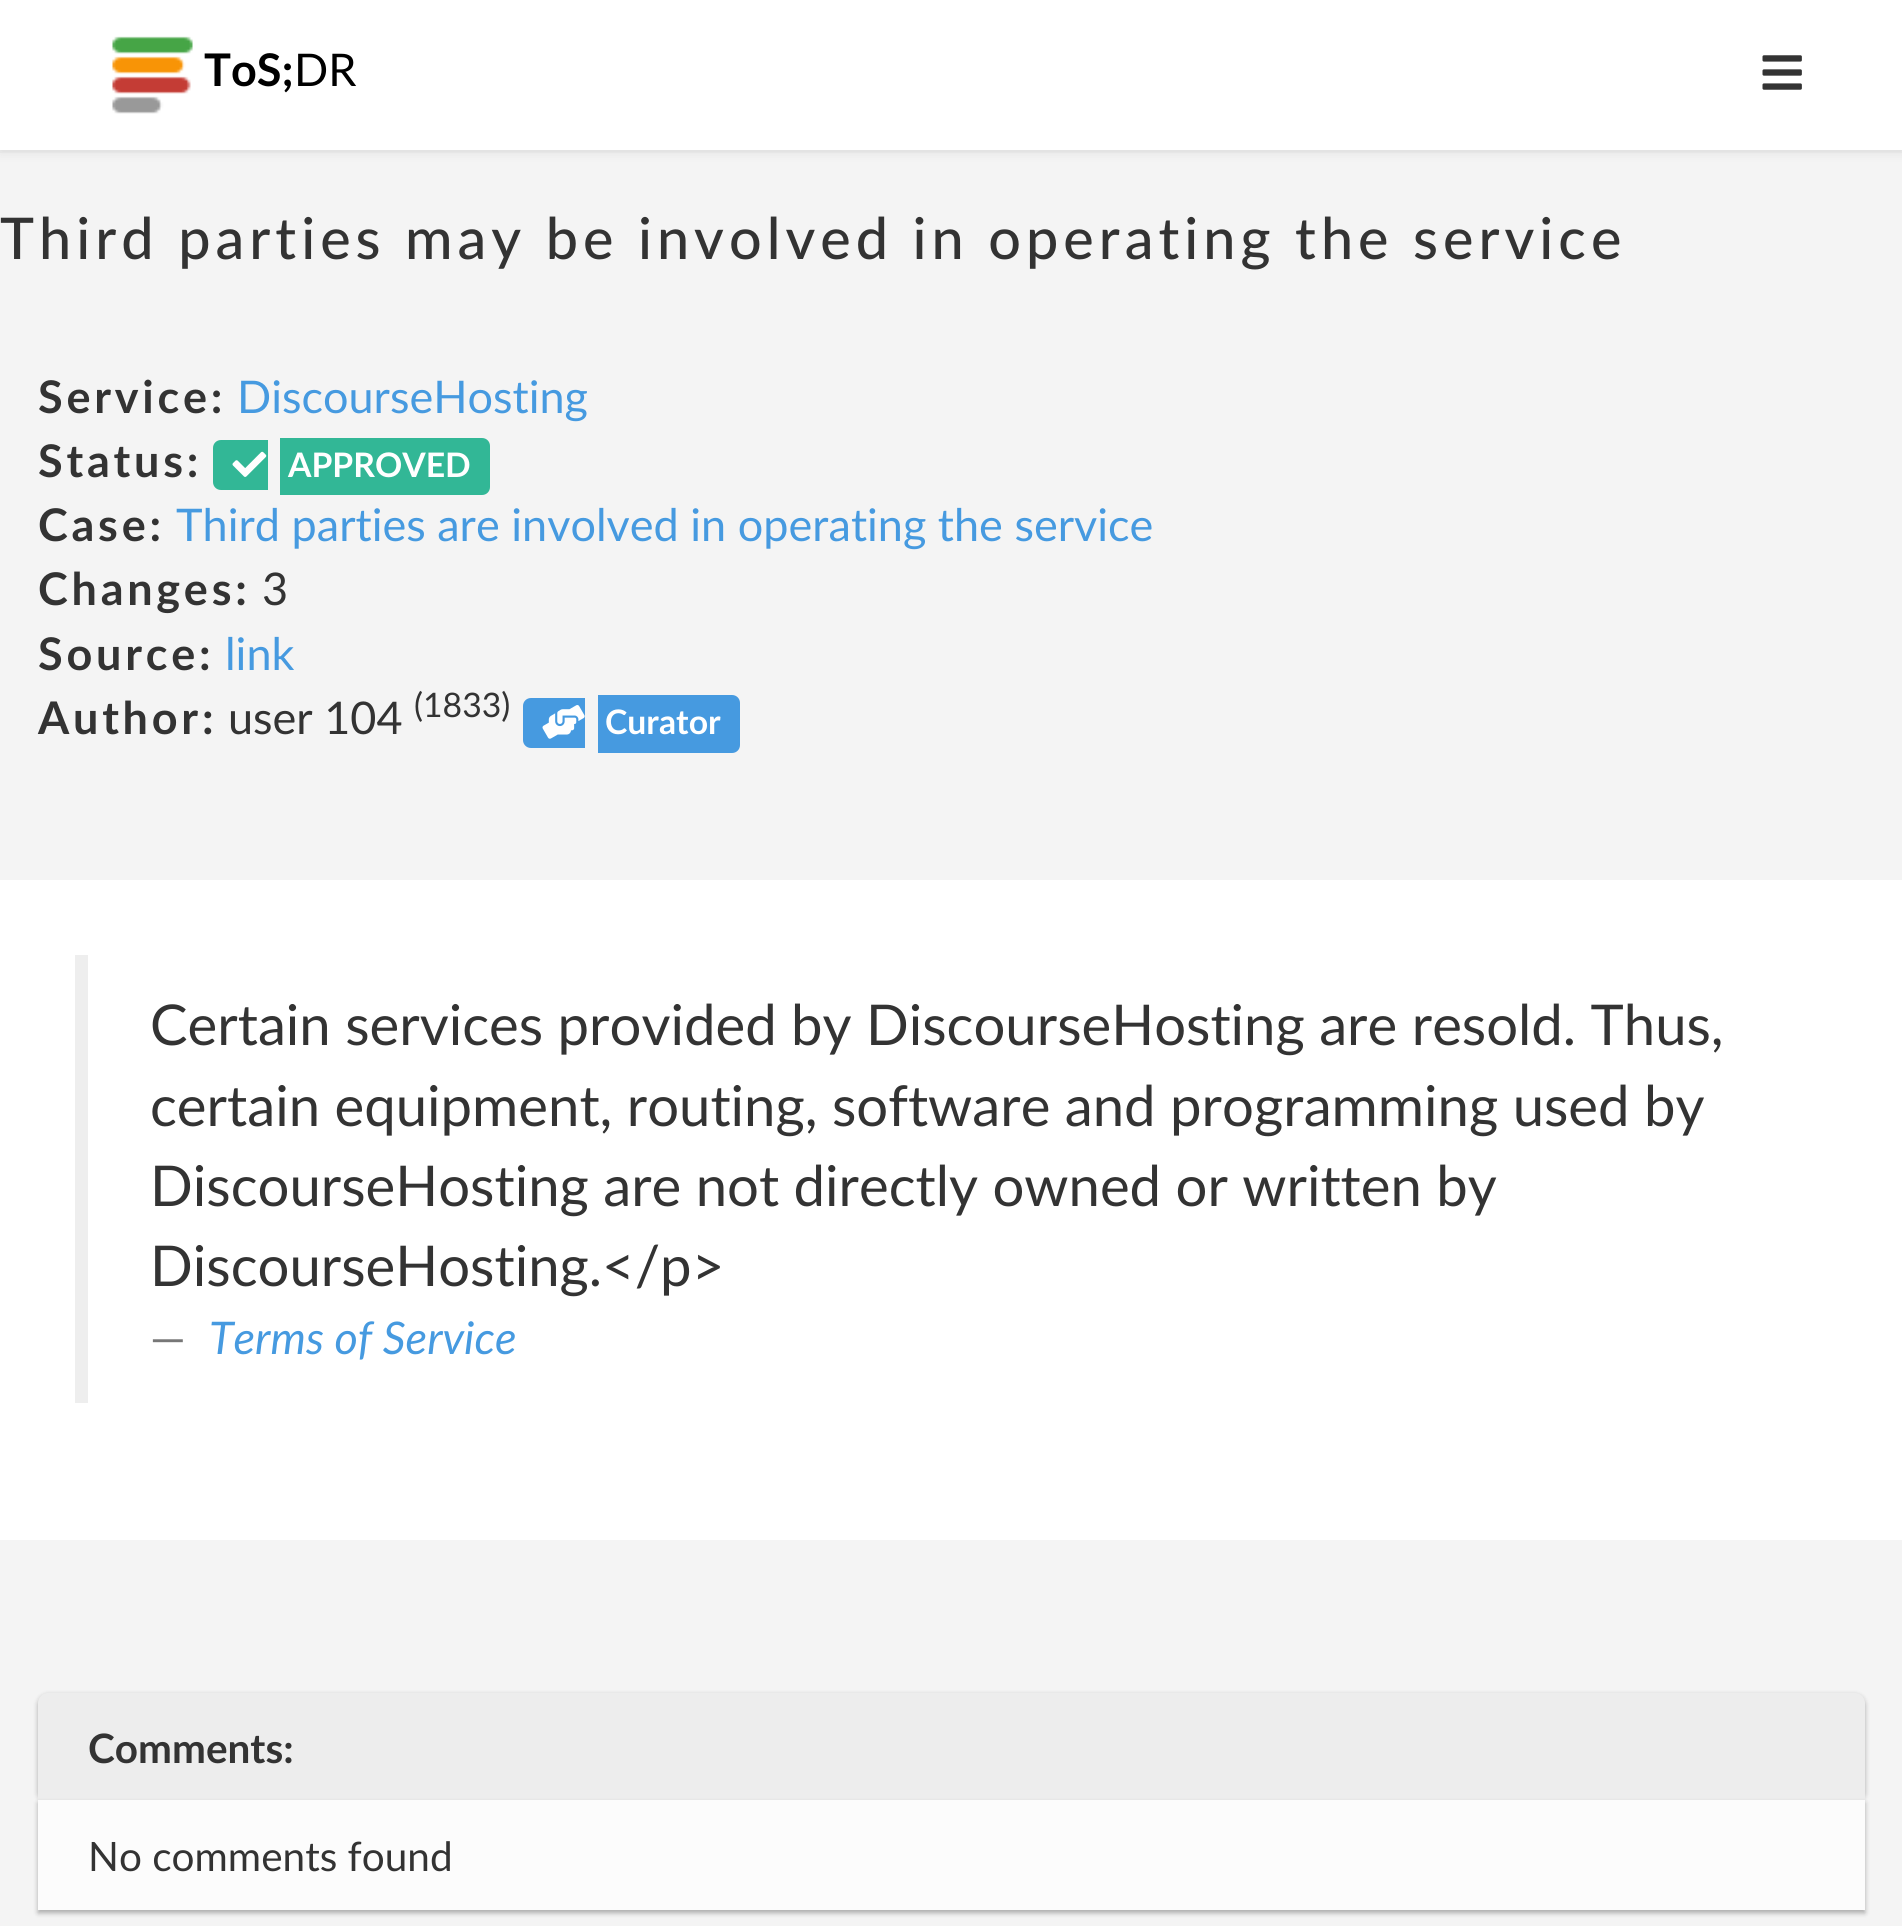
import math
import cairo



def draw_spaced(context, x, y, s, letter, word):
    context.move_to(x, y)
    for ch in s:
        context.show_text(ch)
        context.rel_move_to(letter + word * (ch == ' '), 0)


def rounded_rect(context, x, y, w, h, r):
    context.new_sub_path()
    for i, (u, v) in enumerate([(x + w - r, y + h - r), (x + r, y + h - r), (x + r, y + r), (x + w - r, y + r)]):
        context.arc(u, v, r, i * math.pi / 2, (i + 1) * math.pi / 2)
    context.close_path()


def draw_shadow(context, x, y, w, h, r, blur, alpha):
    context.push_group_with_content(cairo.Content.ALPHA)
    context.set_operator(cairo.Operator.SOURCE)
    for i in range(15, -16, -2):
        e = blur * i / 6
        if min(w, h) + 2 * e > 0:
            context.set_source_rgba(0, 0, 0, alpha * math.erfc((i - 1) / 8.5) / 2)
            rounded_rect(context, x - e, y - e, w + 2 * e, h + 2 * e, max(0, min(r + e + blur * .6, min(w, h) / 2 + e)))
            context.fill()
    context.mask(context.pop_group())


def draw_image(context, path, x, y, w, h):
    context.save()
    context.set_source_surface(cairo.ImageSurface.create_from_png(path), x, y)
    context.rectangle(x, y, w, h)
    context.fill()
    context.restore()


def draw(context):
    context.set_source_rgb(244 / 255, 244 / 255, 244 / 255)
    context.paint()
    context.set_source_rgb(237 / 255, 237 / 255, 237 / 255)
    context.new_path()
    context.move_to(0, 150)
    context.line_to(0, 153)
    context.line_to(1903, 153)
    context.line_to(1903, 3)
    context.line_to(1902, 3)
    context.line_to(1902, 150)
    context.close_path()
    context.fill()
    context.set_source_rgb(0, 0, 0)
    draw_shadow(context, 0, 3, 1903, 150, 0, 6, 0.07)
    context.set_source_rgb(1, 1, 1)
    context.rectangle(0, 0, 1902, 150)
    context.fill()
    draw_image(context, "images/1.png", 112, 36, 81, 78)
    draw_image(context, "images/2.png", 1762, 55, 40, 35)
    context.set_source_rgb(50 / 255, 183 / 255, 150 / 255)
    context.new_path()
    context.move_to(221, 440)
    context.line_to(268, 440)
    context.line_to(268, 490)
    context.line_to(221, 490)
    context.curve_to(216.5, 490, 213, 486.5, 213, 482)
    context.line_to(213, 448)
    context.curve_to(213, 443.5, 216.5, 440, 221, 440)
    context.close_path()
    context.fill()
    context.new_path()
    context.move_to(280, 438)
    context.line_to(482, 438)
    context.curve_to(486.5, 438, 490, 441.5, 490, 446)
    context.line_to(490, 487)
    context.curve_to(490, 491.5, 486.5, 495, 482, 495)
    context.line_to(280, 495)
    context.close_path()
    context.fill()
    draw_image(context, "images/3.png", 232, 451, 35, 26)
    context.set_source_rgb(70 / 255, 154 / 255, 224 / 255)
    context.new_path()
    context.move_to(531, 698)
    context.line_to(585, 698)
    context.line_to(585, 748)
    context.line_to(531, 748)
    context.curve_to(526.5, 748, 523, 744.5, 523, 740)
    context.line_to(523, 706)
    context.curve_to(523, 701.5, 526.5, 698, 531, 698)
    context.close_path()
    context.fill()
    context.new_path()
    context.move_to(598, 695)
    context.line_to(732, 695)
    context.curve_to(736.5, 695, 740, 698.5, 740, 703)
    context.line_to(740, 745)
    context.curve_to(740, 749.5, 736.5, 753, 732, 753)
    context.line_to(598, 753)
    context.close_path()
    context.fill()
    draw_image(context, "images/4.png", 542, 705, 43, 34)
    context.set_source_rgb(1, 1, 1)
    context.rectangle(0, 880, 1902, 660)
    context.fill()
    context.set_source_rgb(238 / 255, 238 / 255, 238 / 255)
    context.rectangle(75, 955, 13, 448)
    context.fill()
    context.set_source_rgb(0, 0, 0)
    draw_shadow(context, 38, 1695, 1827, 108, 10, 2.5, 0.3)
    context.set_source_rgb(237 / 255, 237 / 255, 237 / 255)
    context.new_path()
    context.move_to(48, 1693)
    context.line_to(1855, 1693)
    context.curve_to(1860.5, 1693, 1865, 1697.5, 1865, 1703)
    context.line_to(1865, 1800)
    context.line_to(38, 1800)
    context.line_to(38, 1703)
    context.curve_to(38, 1697.5, 42.5, 1693, 48, 1693)
    context.close_path()
    context.fill()
    context.set_source_rgb(0, 0, 0)
    draw_shadow(context, 38, 1803, 1827, 110, 0, 2.5, 0.3)
    context.set_source_rgb(252 / 255, 252 / 255, 252 / 255)
    context.rectangle(38, 1800, 1827, 110)
    context.fill()
    context.select_font_face("Lato", cairo.FontSlant.NORMAL, cairo.FontWeight.BOLD)
    context.set_font_size(45)
    context.set_source_rgb(0, 0, 0)
    context.move_to(204, 86)
    context.show_text("ToS;")
    context.select_font_face("Lato")
    context.move_to(294, 86)
    context.show_text("DR")
    context.select_font_face("Lato Medium")
    context.set_font_size(57.5)
    context.set_source_rgb(51 / 255, 51 / 255, 51 / 255)
    draw_spaced(context, 0, 259, "Third parties may be involved in operating the service", 5, 0)
    context.select_font_face("Lato", cairo.FontSlant.NORMAL, cairo.FontWeight.BOLD)
    context.set_font_size(45)
    draw_spaced(context, 38, 413, "Service:", 3.75, 0)
    context.select_font_face("Lato")
    context.set_source_rgb(70 / 255, 154 / 255, 224 / 255)
    context.move_to(237, 413)
    context.show_text("DiscourseHosting")
    context.select_font_face("Lato", cairo.FontSlant.NORMAL, cairo.FontWeight.BOLD)
    context.set_source_rgb(51 / 255, 51 / 255, 51 / 255)
    draw_spaced(context, 38, 477, "Status:", 3.75, 0)
    context.set_font_size(33.75)
    context.set_source_rgb(1, 1, 1)
    context.move_to(288, 477)
    context.show_text("APPROVED")
    context.set_font_size(45)
    context.set_source_rgb(51 / 255, 51 / 255, 51 / 255)
    draw_spaced(context, 38, 541, "Case:", 3.75, 0)
    context.select_font_face("Lato")
    context.set_source_rgb(70 / 255, 154 / 255, 224 / 255)
    context.move_to(176, 541)
    context.show_text("Third parties are involved in operating the service")
    context.select_font_face("Lato", cairo.FontSlant.NORMAL, cairo.FontWeight.BOLD)
    context.set_source_rgb(51 / 255, 51 / 255, 51 / 255)
    draw_spaced(context, 38, 605, "Changes:", 3.75, 0)
    context.select_font_face("Lato")
    context.move_to(262, 605)
    context.show_text("3")
    context.select_font_face("Lato", cairo.FontSlant.NORMAL, cairo.FontWeight.BOLD)
    draw_spaced(context, 38, 670, "Source:", 3.75, 0)
    context.select_font_face("Lato")
    context.set_source_rgb(70 / 255, 154 / 255, 224 / 255)
    context.move_to(225, 670)
    context.show_text("link")
    context.select_font_face("Lato", cairo.FontSlant.NORMAL, cairo.FontWeight.BOLD)
    context.set_source_rgb(51 / 255, 51 / 255, 51 / 255)
    draw_spaced(context, 38, 734, "Author:", 3.75, 0)
    context.select_font_face("Lato")
    context.move_to(228, 734)
    context.show_text("user 104")
    context.set_font_size(33.75)
    context.move_to(414, 717)
    context.show_text("(1833)")
    context.select_font_face("Lato", cairo.FontSlant.NORMAL, cairo.FontWeight.BOLD)
    context.set_source_rgb(1, 1, 1)
    context.move_to(605, 734)
    context.show_text("Curator")
    context.select_font_face("Lato")
    context.set_font_size(56.25)
    context.set_source_rgb(51 / 255, 51 / 255, 51 / 255)
    context.move_to(150, 1045)
    context.show_text("Certain services provided by DiscourseHosting are resold. Thus,")
    context.move_to(150, 1126)
    context.show_text("certain equipment, routing, software and programming used by")
    context.move_to(150, 1206)
    context.show_text("DiscourseHosting are not directly owned or written by")
    context.move_to(150, 1286)
    context.show_text("DiscourseHosting.</p>")
    context.set_font_size(45)
    context.set_source_rgb(119 / 255, 119 / 255, 119 / 255)
    context.move_to(150, 1354)
    context.show_text("—")
    context.select_font_face("Lato", cairo.FontSlant.ITALIC)
    context.set_source_rgb(70 / 255, 154 / 255, 224 / 255)
    context.move_to(209, 1354)
    context.show_text("Terms of Service")
    context.select_font_face("Lato", cairo.FontSlant.NORMAL, cairo.FontWeight.BOLD)
    context.set_font_size(40.5)
    context.set_source_rgb(51 / 255, 51 / 255, 51 / 255)
    context.move_to(88, 1763)
    context.show_text("Comments:")
    context.select_font_face("Lato")
    context.move_to(88, 1871)
    context.show_text("No comments found")


surface = cairo.ImageSurface(cairo.Format.RGB24, 1902, 1926)
context = cairo.Context(surface)
options = cairo.FontOptions()
options.set_hint_metrics(cairo.HintMetrics.OFF)
options.set_hint_style(cairo.HintStyle.NONE)
context.set_font_options(options)
context.set_miter_limit(4)
draw(context)
surface.write_to_png("out.png")
